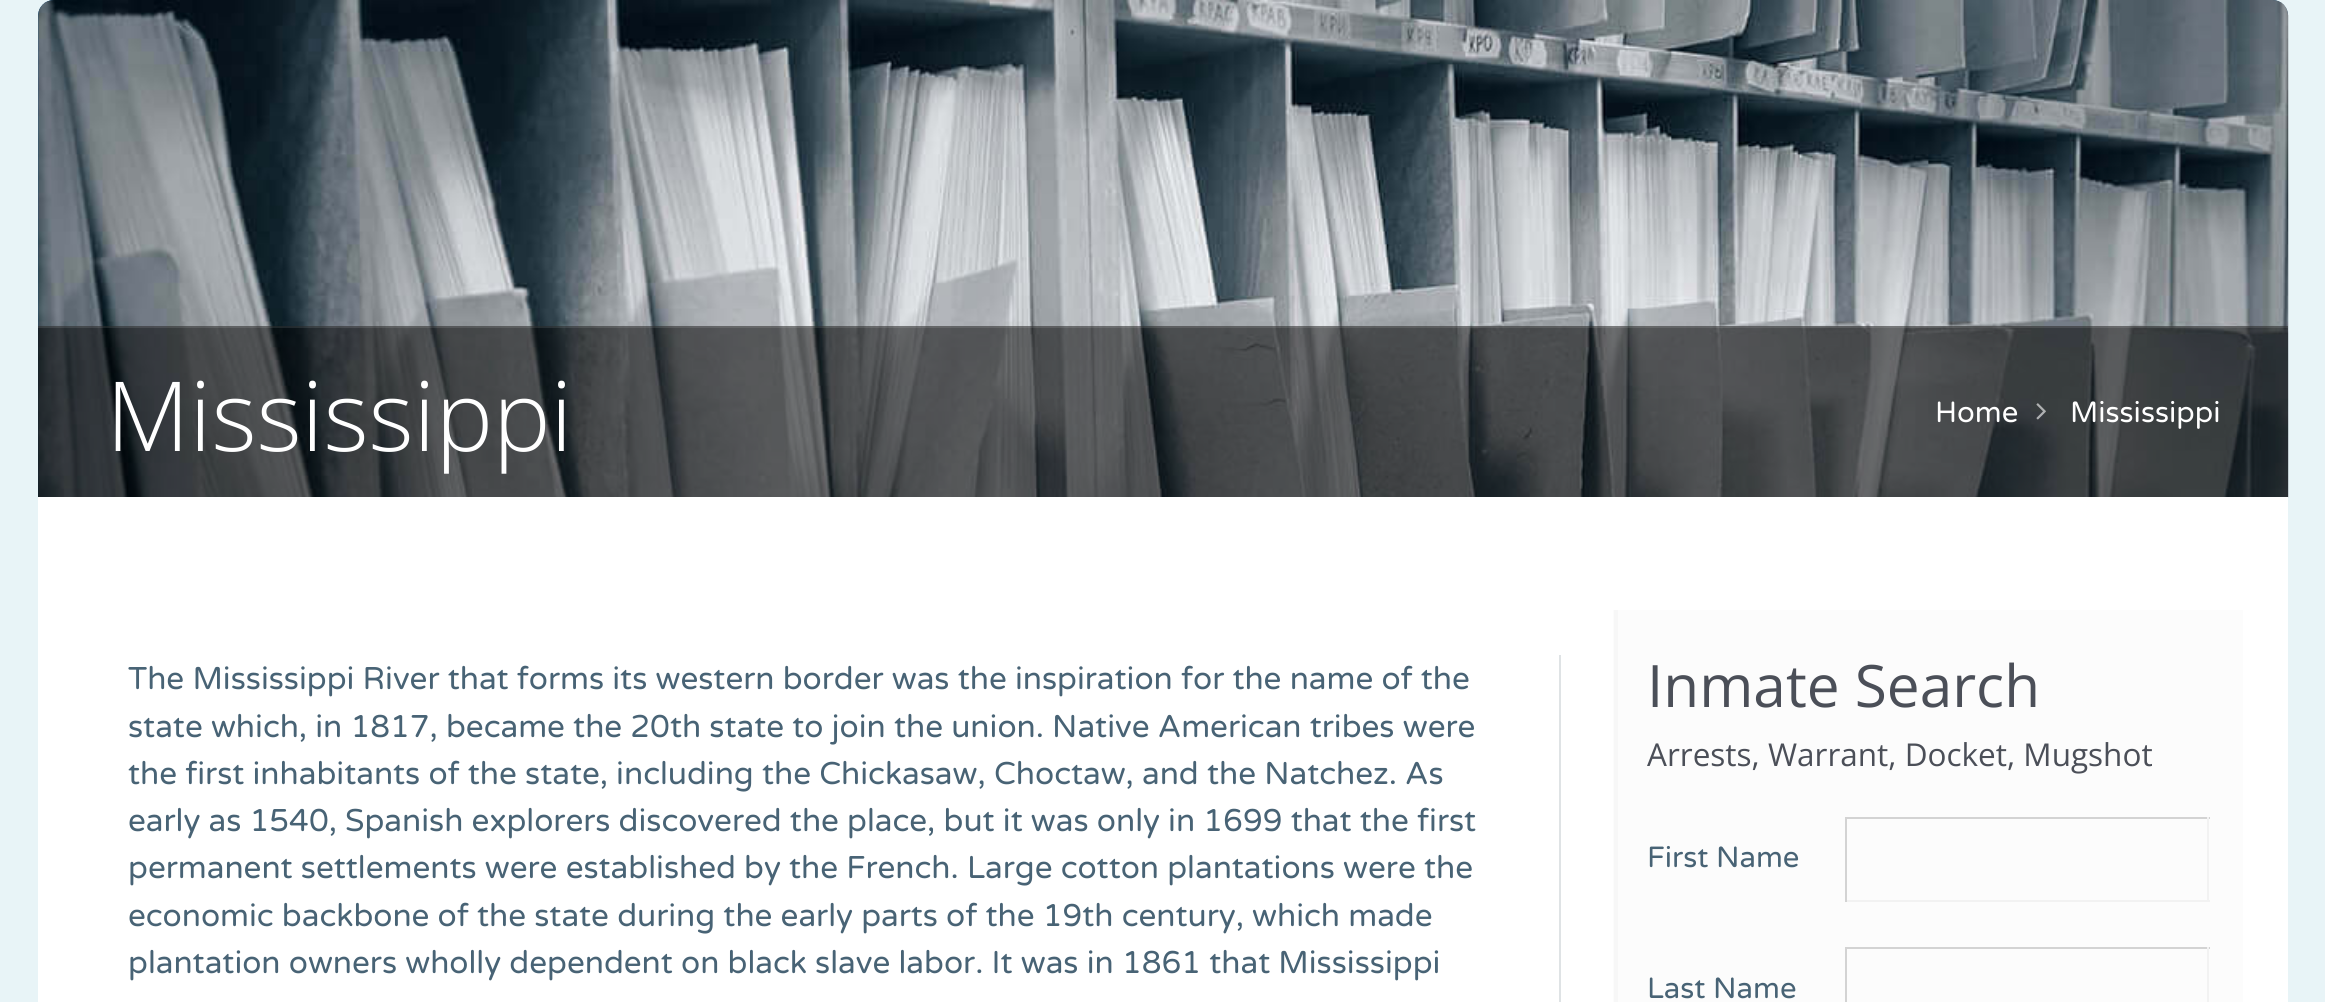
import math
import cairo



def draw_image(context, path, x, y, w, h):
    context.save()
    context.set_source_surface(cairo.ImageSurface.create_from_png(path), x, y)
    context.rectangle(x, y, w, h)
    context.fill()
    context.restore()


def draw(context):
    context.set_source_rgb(232 / 255, 244 / 255, 247 / 255)
    context.paint()
    context.set_source_rgb(12 / 255, 68 / 255, 116 / 255)
    context.new_path()
    context.move_to(54, 0)
    context.line_to(2272, 0)
    context.curve_to(2281, 0, 2288, 7, 2288, 16)
    context.line_to(2288, 497)
    context.line_to(38, 497)
    context.line_to(38, 16)
    context.curve_to(38, 7, 45, 0, 54, 0)
    context.close_path()
    context.fill()
    draw_image(context, "images/1.png", 38, 0, 2251, 498)
    context.set_source_rgba(0, 0, 0, 0.53)
    context.rectangle(38, 326, 2250, 171)
    context.fill()
    context.set_source_rgba(1, 1, 1, 0.1)
    context.rectangle(38, 326, 2250, 2)
    context.fill()
    draw_image(context, "images/2.png", 2036, 403, 10, 17)
    context.set_source_rgb(1, 1, 1)
    context.rectangle(38, 497, 2250, 505)
    context.fill()
    context.set_source_rgb(223 / 255, 227 / 255, 229 / 255)
    context.rectangle(1559, 655, 2, 347)
    context.fill()
    context.set_source_rgb(252 / 255, 252 / 255, 252 / 255)
    context.rectangle(1613, 610, 630, 392)
    context.fill()
    context.set_source_rgb(247 / 255, 247 / 255, 247 / 255)
    context.rectangle(1614, 610, 4, 392)
    context.fill()
    context.set_source_rgb(211 / 255, 211 / 255, 211 / 255)
    context.rectangle(1845, 817, 365, 2)
    context.fill()
    context.set_source_rgb(242 / 255, 242 / 255, 242 / 255)
    context.rectangle(2207, 817, 2, 85)
    context.fill()
    context.rectangle(1845, 900, 365, 2)
    context.fill()
    context.set_source_rgb(211 / 255, 211 / 255, 211 / 255)
    context.rectangle(1845, 817, 2, 85)
    context.fill()
    context.rectangle(1845, 947, 365, 2)
    context.fill()
    context.set_source_rgb(242 / 255, 242 / 255, 242 / 255)
    context.rectangle(2207, 947, 2, 55)
    context.fill()
    context.set_source_rgb(211 / 255, 211 / 255, 211 / 255)
    context.rectangle(1845, 947, 2, 55)
    context.fill()
    context.select_font_face("Open Sans Light")
    context.set_font_size(96.75)
    context.set_source_rgb(1, 1, 1)
    context.move_to(106, 451)
    context.show_text("Mississippi")
    context.select_font_face("Varela Round")
    context.set_font_size(29.25)
    context.move_to(1935, 422)
    context.show_text("Home")
    context.move_to(2070, 422)
    context.show_text("Mississippi")
    context.set_font_size(31.5)
    context.set_source_rgb(72 / 255, 99 / 255, 117 / 255)
    context.move_to(128, 689)
    context.show_text("The Mississippi River that forms its western border was the inspiration for the name of the")
    context.move_to(128, 737)
    context.show_text("state which, in 1817, became the 20th state to join the union. Native American tribes were")
    context.move_to(128, 784)
    context.show_text("the first inhabitants of the state, including the Chickasaw, Choctaw, and the Natchez. As")
    context.move_to(128, 831)
    context.show_text("early as 1540, Spanish explorers discovered the place, but it was only in 1699 that the first")
    context.move_to(128, 878)
    context.show_text("permanent settlements were established by the French. Large cotton plantations were the")
    context.move_to(128, 926)
    context.show_text("economic backbone of the state during the early parts of the 19th century, which made")
    context.move_to(128, 973)
    context.show_text("plantation owners wholly dependent on black slave labor. It was in 1861 that Mississippi")
    context.select_font_face("Open Sans")
    context.set_font_size(58.5)
    context.set_source_rgb(75 / 255, 79 / 255, 88 / 255)
    context.move_to(1647, 707)
    context.show_text("Inmate Search")
    context.set_font_size(31.5)
    context.move_to(1647, 766)
    context.show_text("Arrests, Warrant, Docket, Mugshot")
    context.select_font_face("Varela Round")
    context.set_font_size(29.25)
    context.set_source_rgb(72 / 255, 99 / 255, 117 / 255)
    context.move_to(1647, 867)
    context.show_text("First Name")
    context.move_to(1647, 998)
    context.show_text("Last Name")


surface = cairo.ImageSurface(cairo.Format.RGB24, 2325, 1002)
context = cairo.Context(surface)
options = cairo.FontOptions()
options.set_hint_metrics(cairo.HintMetrics.OFF)
options.set_hint_style(cairo.HintStyle.NONE)
context.set_font_options(options)
context.set_miter_limit(4)
draw(context)
surface.write_to_png("out.png")
